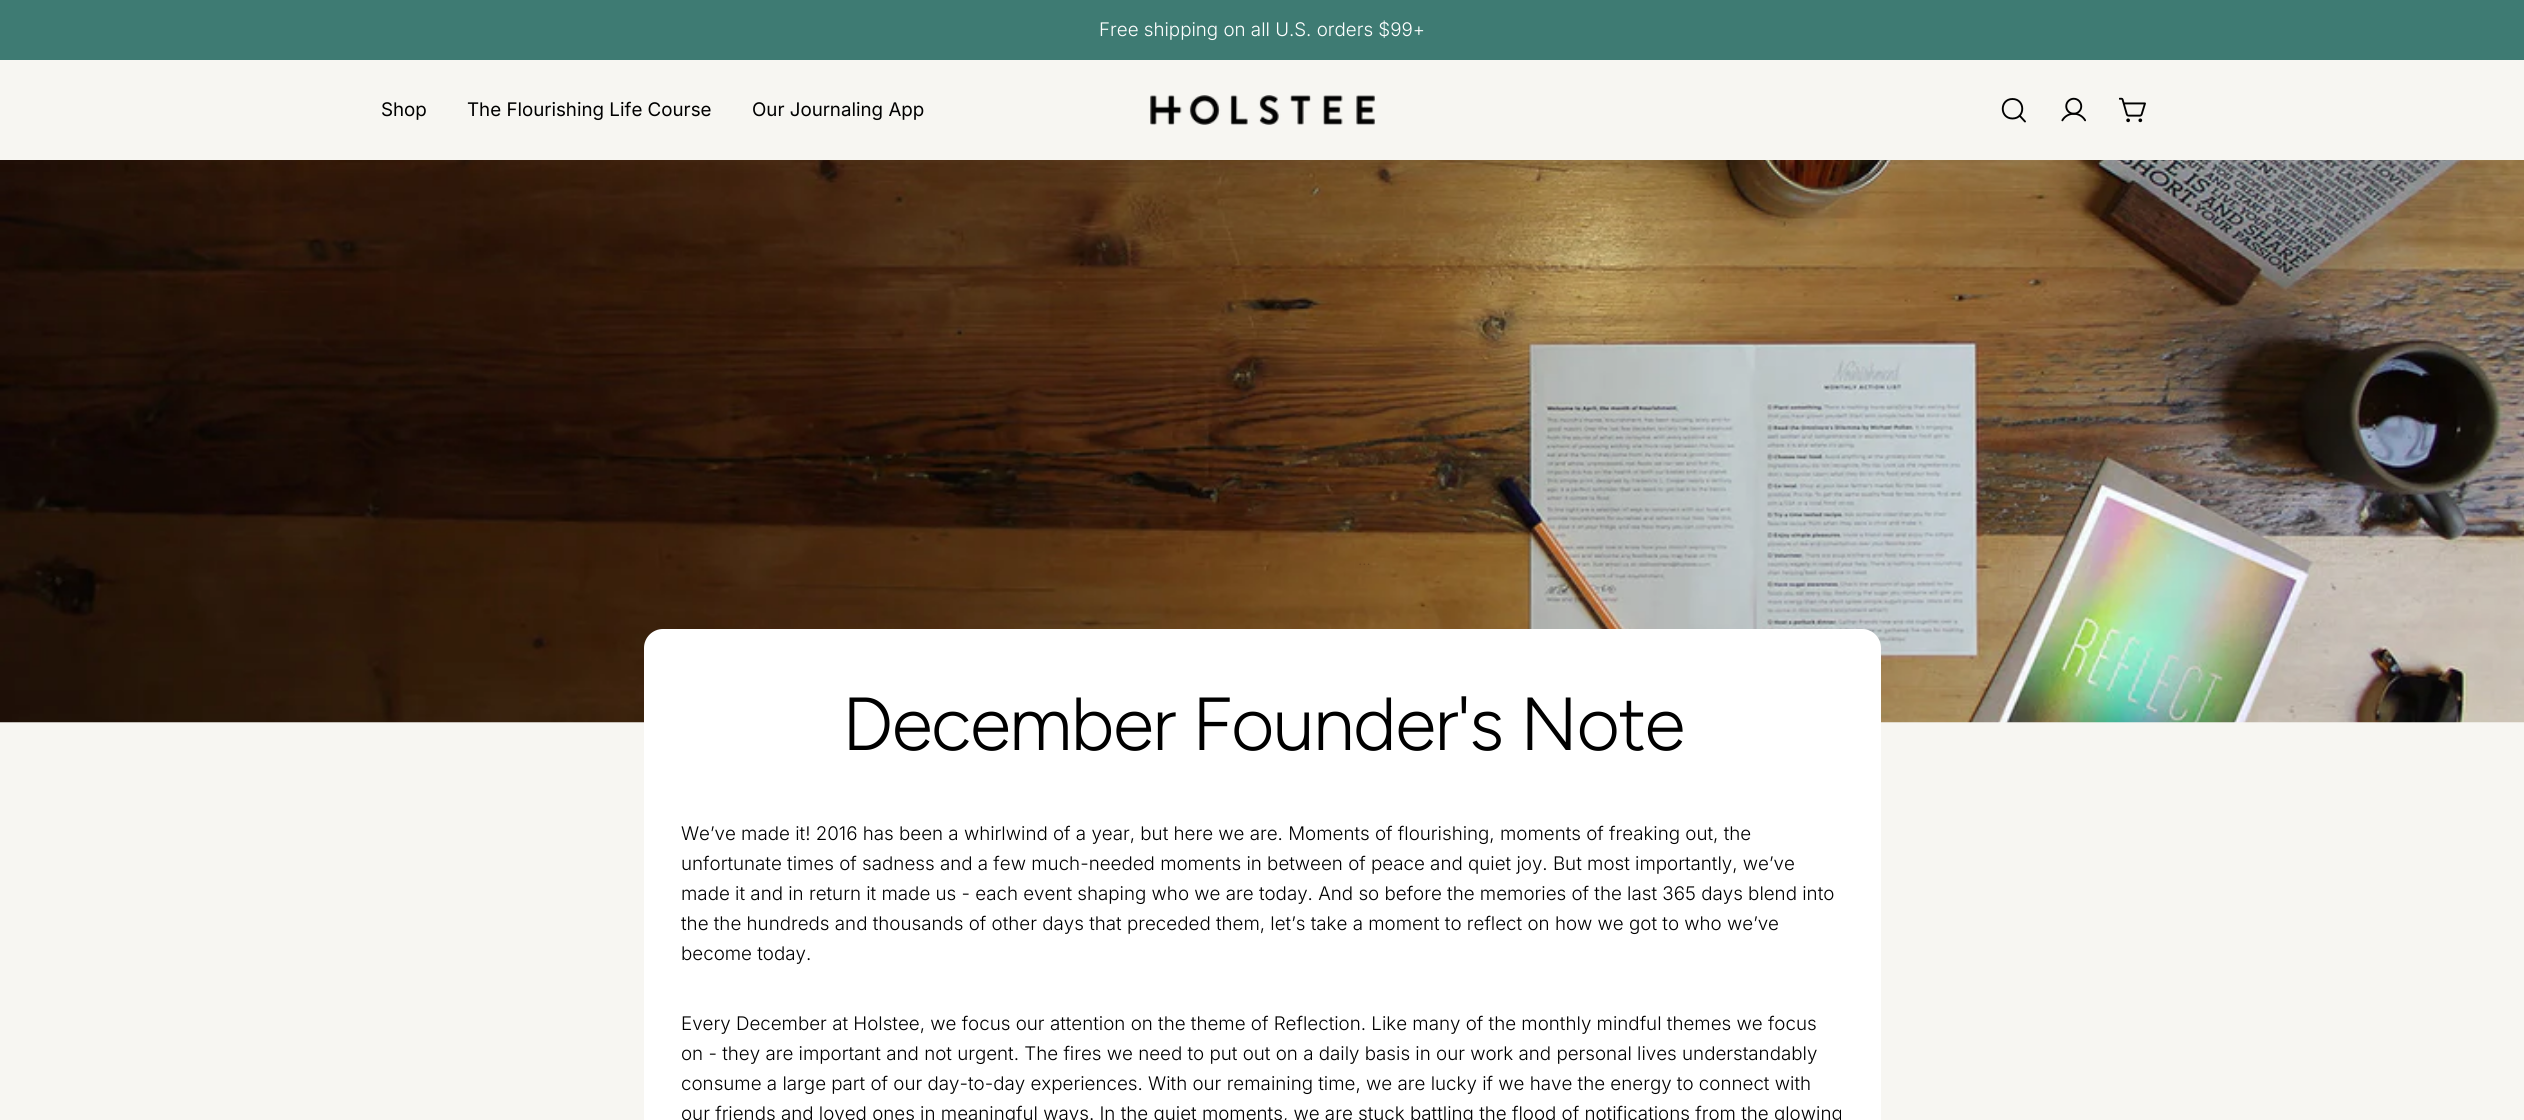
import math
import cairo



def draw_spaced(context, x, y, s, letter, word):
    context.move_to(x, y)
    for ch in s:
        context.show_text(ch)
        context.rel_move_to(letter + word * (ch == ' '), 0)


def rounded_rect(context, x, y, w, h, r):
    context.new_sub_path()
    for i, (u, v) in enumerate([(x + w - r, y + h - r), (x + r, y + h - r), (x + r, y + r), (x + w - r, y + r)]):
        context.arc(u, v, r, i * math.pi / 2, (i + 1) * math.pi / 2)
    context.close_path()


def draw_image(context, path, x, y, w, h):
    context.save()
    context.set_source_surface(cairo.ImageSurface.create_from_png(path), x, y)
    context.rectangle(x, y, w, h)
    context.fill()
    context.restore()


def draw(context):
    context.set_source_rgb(247 / 255, 246 / 255, 242 / 255)
    context.paint()
    context.set_source_rgb(62 / 255, 123 / 255, 115 / 255)
    context.rectangle(0, 0, 2524, 60)
    context.fill()
    draw_image(context, "images/1.png", 1150, 95, 225, 30)
    context.new_path()
    context.move_to(2012.5, 118.5)
    context.curve_to(2025.5, 118.5, 2025.5, 99, 2012.5, 99)
    context.curve_to(1999.5, 99, 1999.5, 118.5, 2012.5, 118.5)
    context.close_path()
    context.move_to(2019.5, 115.5)
    context.line_to(2025, 121.5)
    context.set_source_rgb(0, 0, 0)
    context.set_line_width(1.9)
    context.set_line_cap(cairo.LineCap.ROUND)
    context.set_line_join(cairo.LineJoin.ROUND)
    context.stroke()
    draw_image(context, "images/2.png", 2061, 97, 25, 25)
    draw_image(context, "images/3.png", 2119, 97, 27, 26)
    draw_image(context, "images/4.png", 0, 160, 2524, 563)
    context.set_source_rgb(1, 1, 1)
    rounded_rect(context, 644, 629, 1237, 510, 19)
    context.fill()
    context.select_font_face("Inter Light")
    context.set_font_size(18.75)
    context.move_to(1099, 36)
    context.show_text("Free shipping on all U.S. orders $99+")
    context.select_font_face("Inter")
    context.set_source_rgb(0, 0, 0)
    context.move_to(381, 116)
    context.show_text("Shop")
    context.move_to(467, 116)
    context.show_text("The Flourishing Life Course")
    context.move_to(752, 116)
    context.show_text("Our Journaling App")
    context.select_font_face("Inter Light")
    context.set_font_size(15)
    context.set_source_rgb(109 / 255, 68 / 255, 27 / 255)
    context.move_to(1358, 565)
    context.show_text("…")
    context.select_font_face("Figtree Light")
    context.set_font_size(75)
    context.set_source_rgb(0, 0, 0)
    draw_spaced(context, 842, 750, "December Founder's Note", -1.5, 0)
    context.select_font_face("Inter Light")
    context.set_font_size(18.75)
    context.move_to(681, 840)
    context.show_text("We’ve made it! 2016 has been a whirlwind of a year, but here we are. Moments of flourishing, moments of freaking out, the")
    context.move_to(681, 870)
    context.show_text("unfortunate times of sadness and a few much-needed moments in between of peace and quiet joy. But most importantly, we’ve")
    context.move_to(681, 900)
    context.show_text("made it and in return it made us - each event shaping who we are today. And so before the memories of the last 365 days blend into")
    context.move_to(681, 930)
    context.show_text("the the hundreds and thousands of other days that preceded them, let’s take a moment to reflect on how we got to who we’ve")
    context.move_to(681, 960)
    context.show_text("become today.")
    context.move_to(681, 1030)
    context.show_text("Every December at Holstee, we focus our attention on the theme of Reflection. Like many of the monthly mindful themes we focus")
    context.move_to(681, 1060)
    context.show_text("on - they are important and not urgent. The fires we need to put out on a daily basis in our work and personal lives understandably")
    context.move_to(681, 1090)
    context.show_text("consume a large part of our day-to-day experiences. With our remaining time, we are lucky if we have the energy to connect with")
    context.move_to(681, 1120)
    context.show_text("our friends and loved ones in meaningful ways. In the quiet moments, we are stuck battling the flood of notifications from the glowing")


surface = cairo.ImageSurface(cairo.Format.RGB24, 2524, 1120)
context = cairo.Context(surface)
options = cairo.FontOptions()
options.set_hint_metrics(cairo.HintMetrics.OFF)
options.set_hint_style(cairo.HintStyle.NONE)
context.set_font_options(options)
context.set_miter_limit(4)
draw(context)
surface.write_to_png("out.png")
